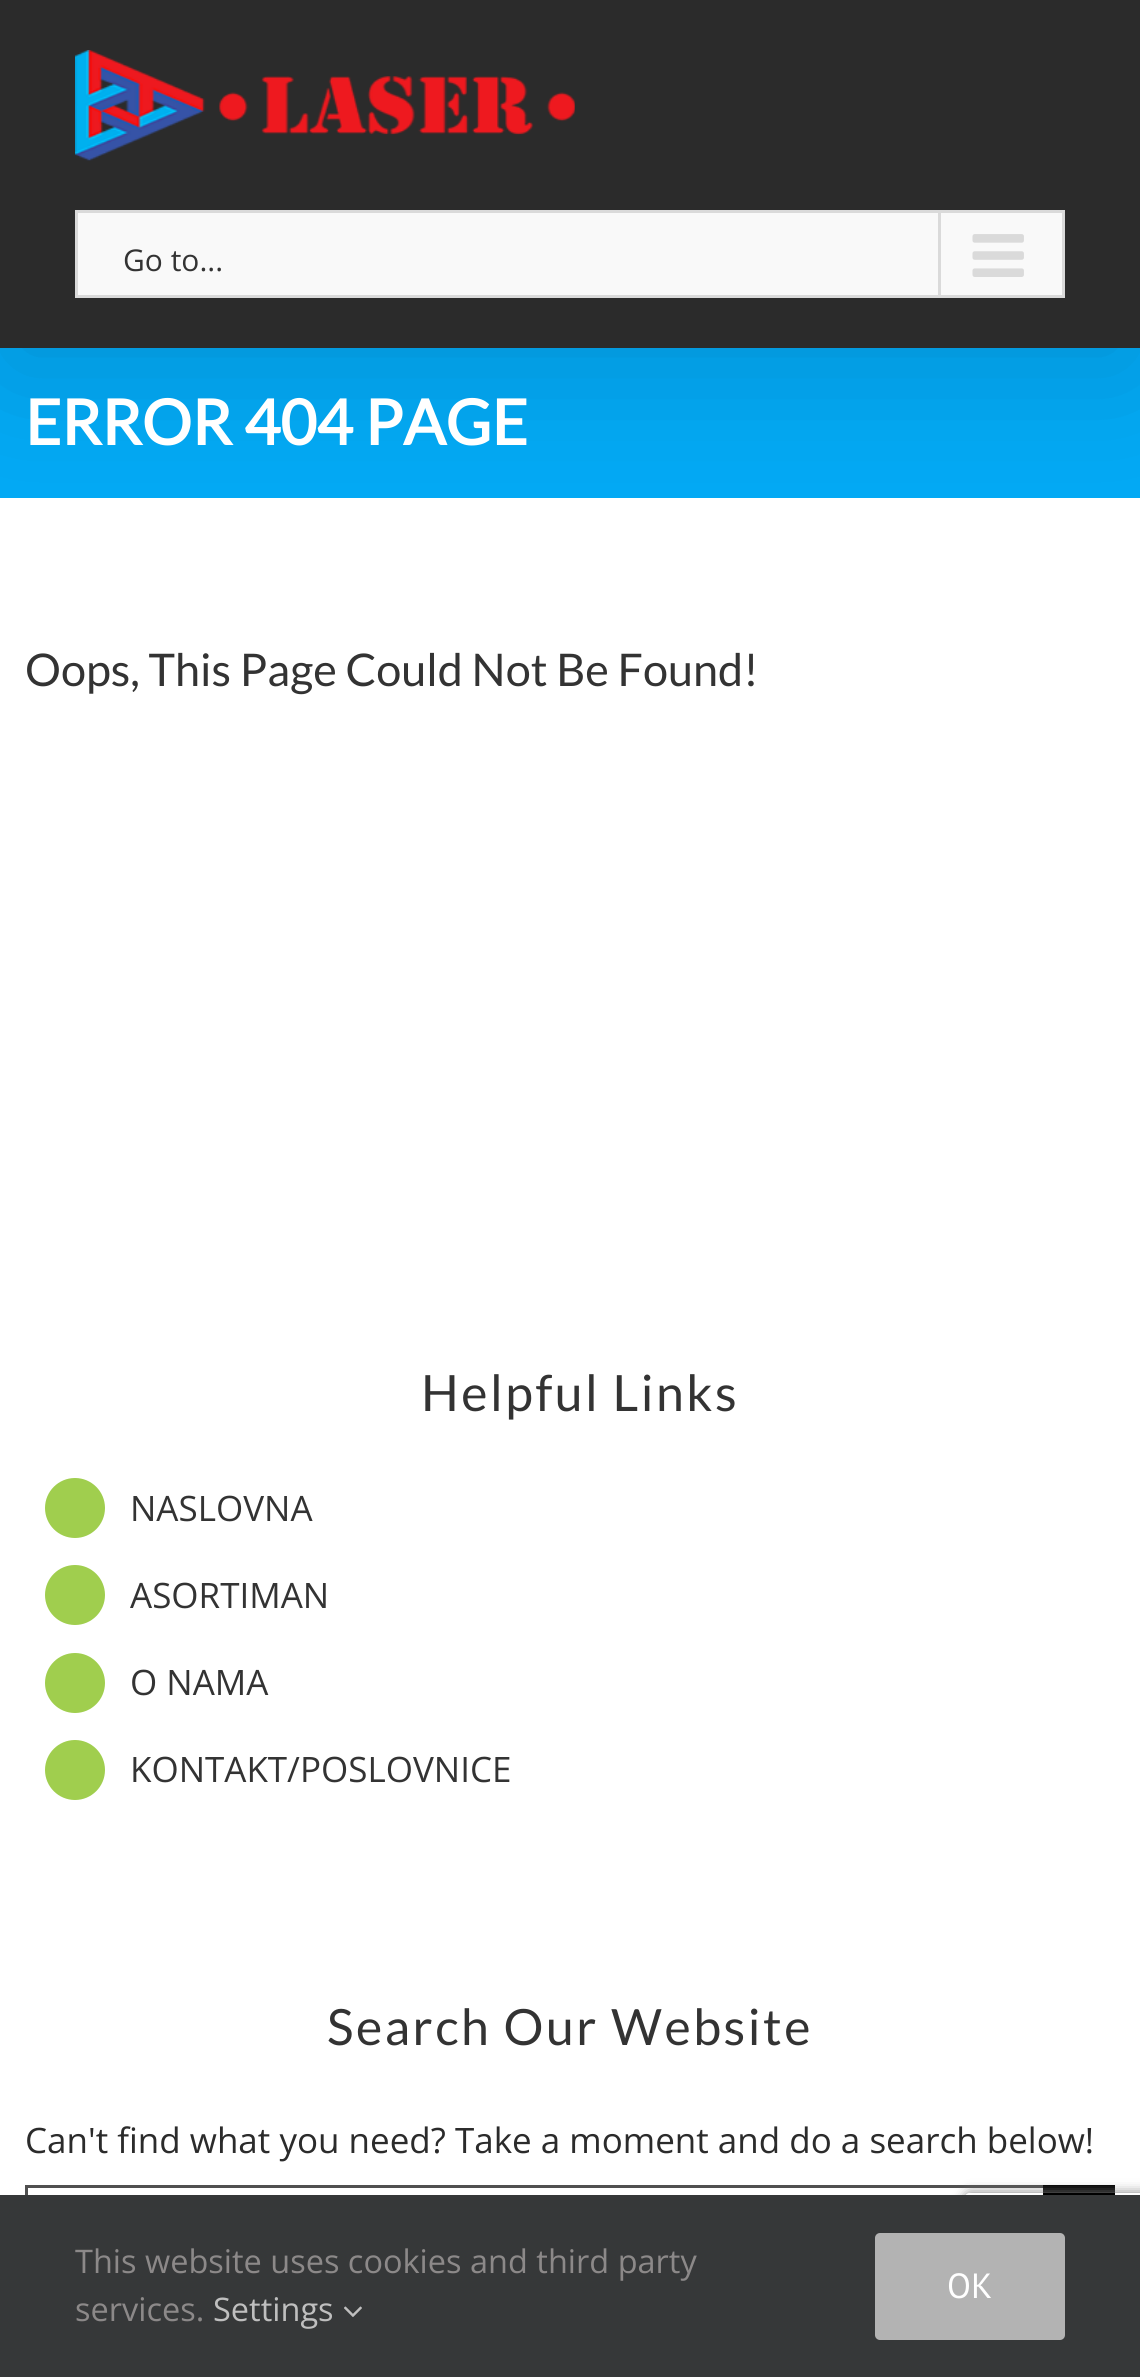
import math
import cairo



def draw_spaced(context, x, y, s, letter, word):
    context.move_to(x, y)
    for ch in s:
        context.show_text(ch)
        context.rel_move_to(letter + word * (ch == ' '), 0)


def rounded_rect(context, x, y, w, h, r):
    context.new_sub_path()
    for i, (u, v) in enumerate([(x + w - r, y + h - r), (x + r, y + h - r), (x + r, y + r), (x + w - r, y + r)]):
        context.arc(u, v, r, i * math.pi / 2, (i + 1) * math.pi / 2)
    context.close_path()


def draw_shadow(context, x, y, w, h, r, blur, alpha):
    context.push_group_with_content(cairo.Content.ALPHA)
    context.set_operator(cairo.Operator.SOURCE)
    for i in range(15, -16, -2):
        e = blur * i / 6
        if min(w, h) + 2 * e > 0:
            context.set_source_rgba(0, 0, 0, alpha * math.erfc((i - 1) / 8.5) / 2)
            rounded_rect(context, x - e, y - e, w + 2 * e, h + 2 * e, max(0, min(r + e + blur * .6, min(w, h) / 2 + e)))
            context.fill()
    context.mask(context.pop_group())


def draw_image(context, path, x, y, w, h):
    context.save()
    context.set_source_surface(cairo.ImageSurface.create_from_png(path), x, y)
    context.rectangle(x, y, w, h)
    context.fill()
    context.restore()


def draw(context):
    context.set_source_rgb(1, 1, 1)
    context.paint()
    context.set_source_rgb(3 / 255, 169 / 255, 244 / 255)
    context.rectangle(0, 348, 1140, 150)
    context.fill()
    context.set_source_rgb(0, 0, 0)
    draw_shadow(context, 5, 30, 1130, 338, 0, 62.5, 0.14)
    context.set_source_rgb(43 / 255, 43 / 255, 43 / 255)
    context.rectangle(0, 0, 1140, 348)
    context.fill()
    draw_image(context, "images/1.png", 75, 50, 500, 111)
    context.set_source_rgb(249 / 255, 249 / 255, 249 / 255)
    context.rectangle(76.5, 211.5, 987, 85)
    context.fill_preserve()
    context.set_source_rgb(218 / 255, 218 / 255, 218 / 255)
    context.set_line_width(3)
    context.stroke()
    context.rectangle(938, 213, 3, 82)
    context.fill()
    draw_image(context, "images/2.png", 972, 234, 52, 43)
    context.set_source_rgb(160 / 255, 206 / 255, 78 / 255)
    context.arc(75, 1508, 30, 0, 2 * math.pi)
    context.fill()
    context.arc(75, 1595, 30, 0, 2 * math.pi)
    context.fill()
    context.arc(75, 1683, 30, 0, 2 * math.pi)
    context.fill()
    context.arc(75, 1770, 30, 0, 2 * math.pi)
    context.fill()
    context.set_source_rgb(80 / 255, 80 / 255, 80 / 255)
    context.rectangle(25, 2185, 1018, 3)
    context.fill()
    context.rectangle(25, 2185, 3, 10)
    context.fill()
    context.set_source_rgb(0, 0, 0)
    context.rectangle(1043, 2185, 72, 10)
    context.fill()
    context.save()
    context.set_fill_rule(cairo.FillRule.EVEN_ODD)
    context.new_path()
    context.move_to(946, 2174)
    context.line_to(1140, 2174)
    context.line_to(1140, 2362)
    context.line_to(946, 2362)
    context.close_path()
    context.move_to(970, 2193)
    context.line_to(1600, 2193)
    context.curve_to(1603, 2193, 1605, 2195, 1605, 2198)
    context.line_to(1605, 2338)
    context.curve_to(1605, 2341, 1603, 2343, 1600, 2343)
    context.line_to(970, 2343)
    context.curve_to(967, 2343, 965, 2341, 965, 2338)
    context.line_to(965, 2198)
    context.curve_to(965, 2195, 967, 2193, 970, 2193)
    context.close_path()
    context.clip()
    context.set_source_rgb(128 / 255, 128 / 255, 128 / 255)
    draw_shadow(context, 965, 2193, 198, 150, 5, 6, 1)
    context.restore()
    context.set_source_rgb(54 / 255, 56 / 255, 57 / 255)
    context.rectangle(0, 2195, 1140, 182)
    context.fill()
    draw_image(context, "images/3.png", 344, 2306, 18, 11)
    context.set_source_rgb(179 / 255, 179 / 255, 179 / 255)
    rounded_rect(context, 875, 2233, 190, 107, 5)
    context.fill()
    context.select_font_face("Open Sans")
    context.set_font_size(30)
    context.set_source_rgb(51 / 255, 51 / 255, 51 / 255)
    context.move_to(123, 271)
    context.show_text("Go to...")
    context.select_font_face("Lato", cairo.FontSlant.NORMAL, cairo.FontWeight.BOLD)
    context.set_font_size(62.5)
    context.set_source_rgb(1, 1, 1)
    context.move_to(25, 445)
    context.show_text("ERROR 404 PAGE")
    context.select_font_face("Lato")
    context.set_font_size(45)
    context.set_source_rgb(51 / 255, 51 / 255, 51 / 255)
    context.move_to(25, 686)
    context.show_text("Oops, This Page Could Not Be Found!")
    context.set_font_size(50)
    draw_spaced(context, 421, 1411, "Helpful Links", 2.5, 0)
    context.select_font_face("Open Sans")
    context.set_font_size(35)
    context.move_to(130, 1521)
    context.show_text("NASLOVNA")
    context.move_to(130, 1608)
    context.show_text("ASORTIMAN")
    context.move_to(130, 1695)
    context.show_text("O NAMA")
    context.move_to(130, 1782)
    context.show_text("KONTAKT/POSLOVNICE")
    context.select_font_face("Lato")
    context.set_font_size(50)
    draw_spaced(context, 327, 2045, "Search Our Website", 2.5, 0)
    context.select_font_face("Open Sans")
    context.set_font_size(35)
    context.set_source_rgb(43 / 255, 43 / 255, 43 / 255)
    context.move_to(25, 2153)
    context.show_text("Can't find what you need? Take a moment and do a search below!")
    context.set_font_size(32.5)
    context.set_source_rgb(140 / 255, 137 / 255, 137 / 255)
    context.move_to(75, 2273)
    context.show_text("This website uses cookies and third party")
    context.move_to(75, 2321)
    context.show_text("services.")
    context.set_source_rgb(191 / 255, 191 / 255, 191 / 255)
    context.move_to(213, 2321)
    context.show_text("Settings")
    context.select_font_face("PT Sans")
    context.set_font_size(35)
    context.set_source_rgb(1, 1, 1)
    context.move_to(947, 2298)
    context.show_text("OK")


surface = cairo.ImageSurface(cairo.Format.RGB24, 1140, 2377)
context = cairo.Context(surface)
options = cairo.FontOptions()
options.set_hint_metrics(cairo.HintMetrics.OFF)
options.set_hint_style(cairo.HintStyle.NONE)
context.set_font_options(options)
context.set_miter_limit(4)
draw(context)
surface.write_to_png("out.png")
